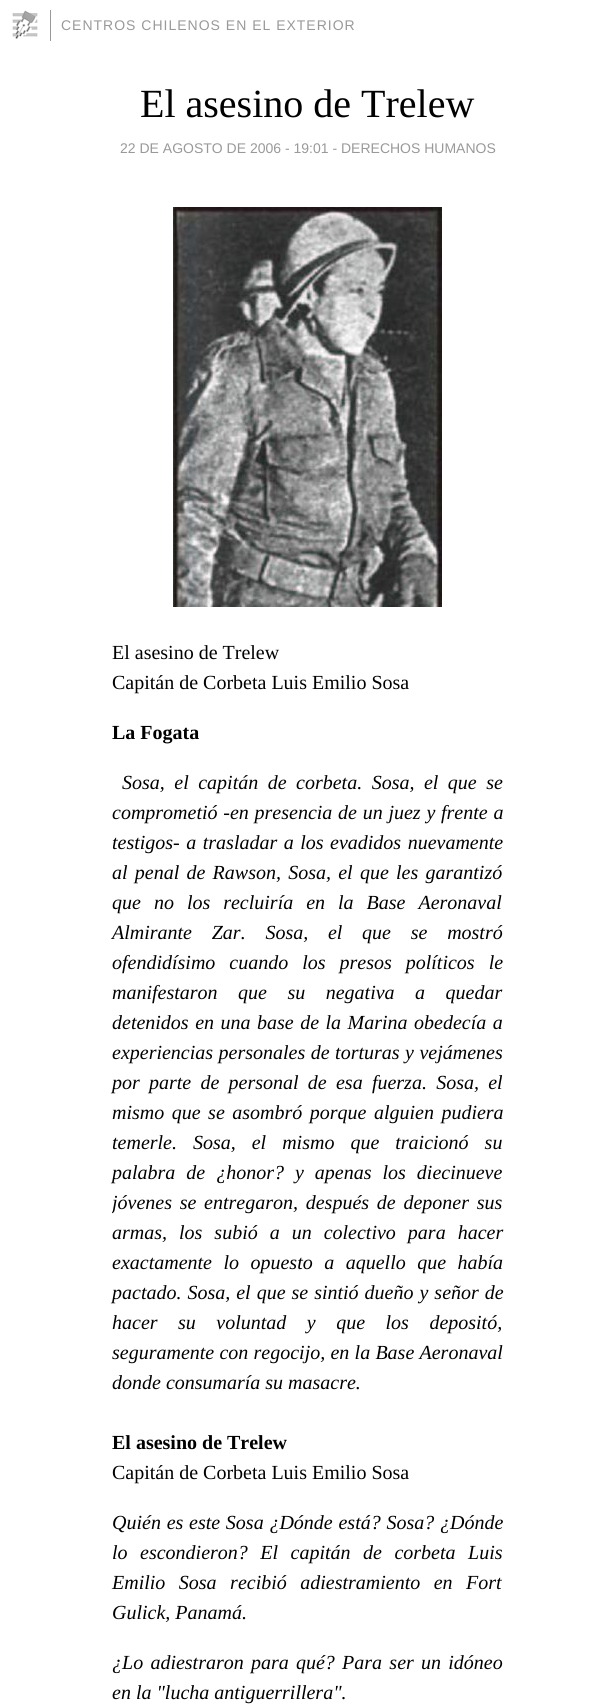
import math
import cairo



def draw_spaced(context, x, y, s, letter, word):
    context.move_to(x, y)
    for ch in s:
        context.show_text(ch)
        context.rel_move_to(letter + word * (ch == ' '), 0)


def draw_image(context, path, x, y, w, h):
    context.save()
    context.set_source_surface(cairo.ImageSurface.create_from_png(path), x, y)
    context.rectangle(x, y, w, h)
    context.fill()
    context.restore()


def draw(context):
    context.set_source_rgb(1, 1, 1)
    context.paint()
    draw_image(context, "images/1.png", 12, 10, 26, 29)
    context.set_source_rgb(153 / 255, 153 / 255, 153 / 255)
    context.rectangle(50, 10, 1, 31)
    context.fill()
    draw_image(context, "images/2.png", 173, 207, 269, 400)
    context.select_font_face("Liberation Sans")
    context.set_font_size(14)
    draw_spaced(context, 61, 30, "CENTROS CHILENOS EN EL EXTERIOR", 1, 0)
    context.select_font_face("Liberation Serif")
    context.set_font_size(40)
    context.set_source_rgb(0, 0, 0)
    context.move_to(140, 117)
    context.show_text("El asesino de Trelew")
    context.select_font_face("Liberation Sans")
    context.set_font_size(14)
    context.set_source_rgb(153 / 255, 153 / 255, 153 / 255)
    context.move_to(120, 153)
    context.show_text("22 DE AGOSTO DE 2006 - 19:01 - DERECHOS HUMANOS")
    context.select_font_face("Liberation Serif")
    context.set_font_size(20)
    context.set_source_rgb(0, 0, 0)
    context.move_to(112, 659)
    context.show_text("El asesino de Trelew")
    context.move_to(112, 689)
    context.show_text("Capitán de Corbeta Luis Emilio Sosa")
    context.select_font_face("Liberation Serif", cairo.FontSlant.NORMAL, cairo.FontWeight.BOLD)
    context.move_to(112, 739)
    context.show_text("La Fogata")
    context.select_font_face("Liberation Serif", cairo.FontSlant.ITALIC)
    draw_spaced(context, 122, 789, "Sosa, el capitán de corbeta. Sosa, el que se", 0, 4.5)
    draw_spaced(context, 112, 819, "comprometió -en presencia de un juez y frente a", 0, 0.75)
    draw_spaced(context, 112, 849, "testigos- a trasladar a los evadidos nuevamente", 0, 1.5)
    draw_spaced(context, 112, 879, "al penal de Rawson, Sosa, el que les garantizó", 0, 2.25)
    draw_spaced(context, 112, 909, "que no los recluiría en la Base Aeronaval", 0, 8)
    draw_spaced(context, 112, 939, "Almirante Zar. Sosa, el que se mostró", 0, 14.75)
    draw_spaced(context, 112, 969, "ofendidísimo cuando los presos políticos le", 0, 9)
    draw_spaced(context, 112, 999, "manifestaron que su negativa a quedar", 0, 15.5)
    draw_spaced(context, 112, 1029, "detenidos en una base de la Marina obedecía a", 0, 1.5)
    draw_spaced(context, 112, 1059, "experiencias personales de torturas y vejámenes", 0, 0.5)
    draw_spaced(context, 112, 1089, "por parte de personal de esa fuerza. Sosa, el", 0, 4.25)
    draw_spaced(context, 112, 1119, "mismo que se asombró porque alguien pudiera", 0, 2.5)
    draw_spaced(context, 112, 1149, "temerle. Sosa, el mismo que traicionó su", 0, 11)
    draw_spaced(context, 112, 1179, "palabra de ¿honor? y apenas los diecinueve", 0, 6)
    context.save()
    context.rectangle(112, 51, 391, 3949)
    context.clip()
    draw_spaced(context, 112, 1209, "jóvenes se entregaron, después de deponer sus", 0, 2.75)
    context.restore()
    draw_spaced(context, 112, 1239, "armas, los subió a un colectivo para hacer", 0, 7)
    draw_spaced(context, 112, 1269, "exactamente lo opuesto a aquello que había", 0, 6.5)
    draw_spaced(context, 112, 1299, "pactado. Sosa, el que se sintió dueño y señor de", 0, 1)
    draw_spaced(context, 112, 1329, "hacer su voluntad y que los depositó,", 0, 15.5)
    draw_spaced(context, 112, 1359, "seguramente con regocijo, en la Base Aeronaval", 0, 0.25)
    context.move_to(112, 1389)
    context.show_text("donde consumaría su masacre.")
    context.select_font_face("Liberation Serif", cairo.FontSlant.NORMAL, cairo.FontWeight.BOLD)
    context.move_to(112, 1449)
    context.show_text("El asesino de Trelew")
    context.select_font_face("Liberation Serif")
    context.move_to(112, 1479)
    context.show_text("Capitán de Corbeta Luis Emilio Sosa")
    context.select_font_face("Liberation Serif", cairo.FontSlant.ITALIC)
    draw_spaced(context, 112, 1529, "Quién es este Sosa ¿Dónde está? Sosa? ¿Dónde", 0, 0.75)
    draw_spaced(context, 112, 1559, "lo escondieron? El capitán de corbeta Luis", 0, 7.5)
    draw_spaced(context, 112, 1589, "Emilio Sosa recibió adiestramiento en Fort", 0, 8.5)
    context.move_to(112, 1619)
    context.show_text("Gulick, Panamá.")
    draw_spaced(context, 112, 1669, "¿Lo adiestraron para qué? Para ser un idóneo", 0, 2.25)
    context.move_to(112, 1699)
    context.show_text("en la \"lucha antiguerrillera\".")


surface = cairo.ImageSurface(cairo.Format.RGB24, 615, 1704)
context = cairo.Context(surface)
options = cairo.FontOptions()
options.set_hint_metrics(cairo.HintMetrics.OFF)
options.set_hint_style(cairo.HintStyle.NONE)
context.set_font_options(options)
context.set_miter_limit(4)
draw(context)
surface.write_to_png("out.png")
